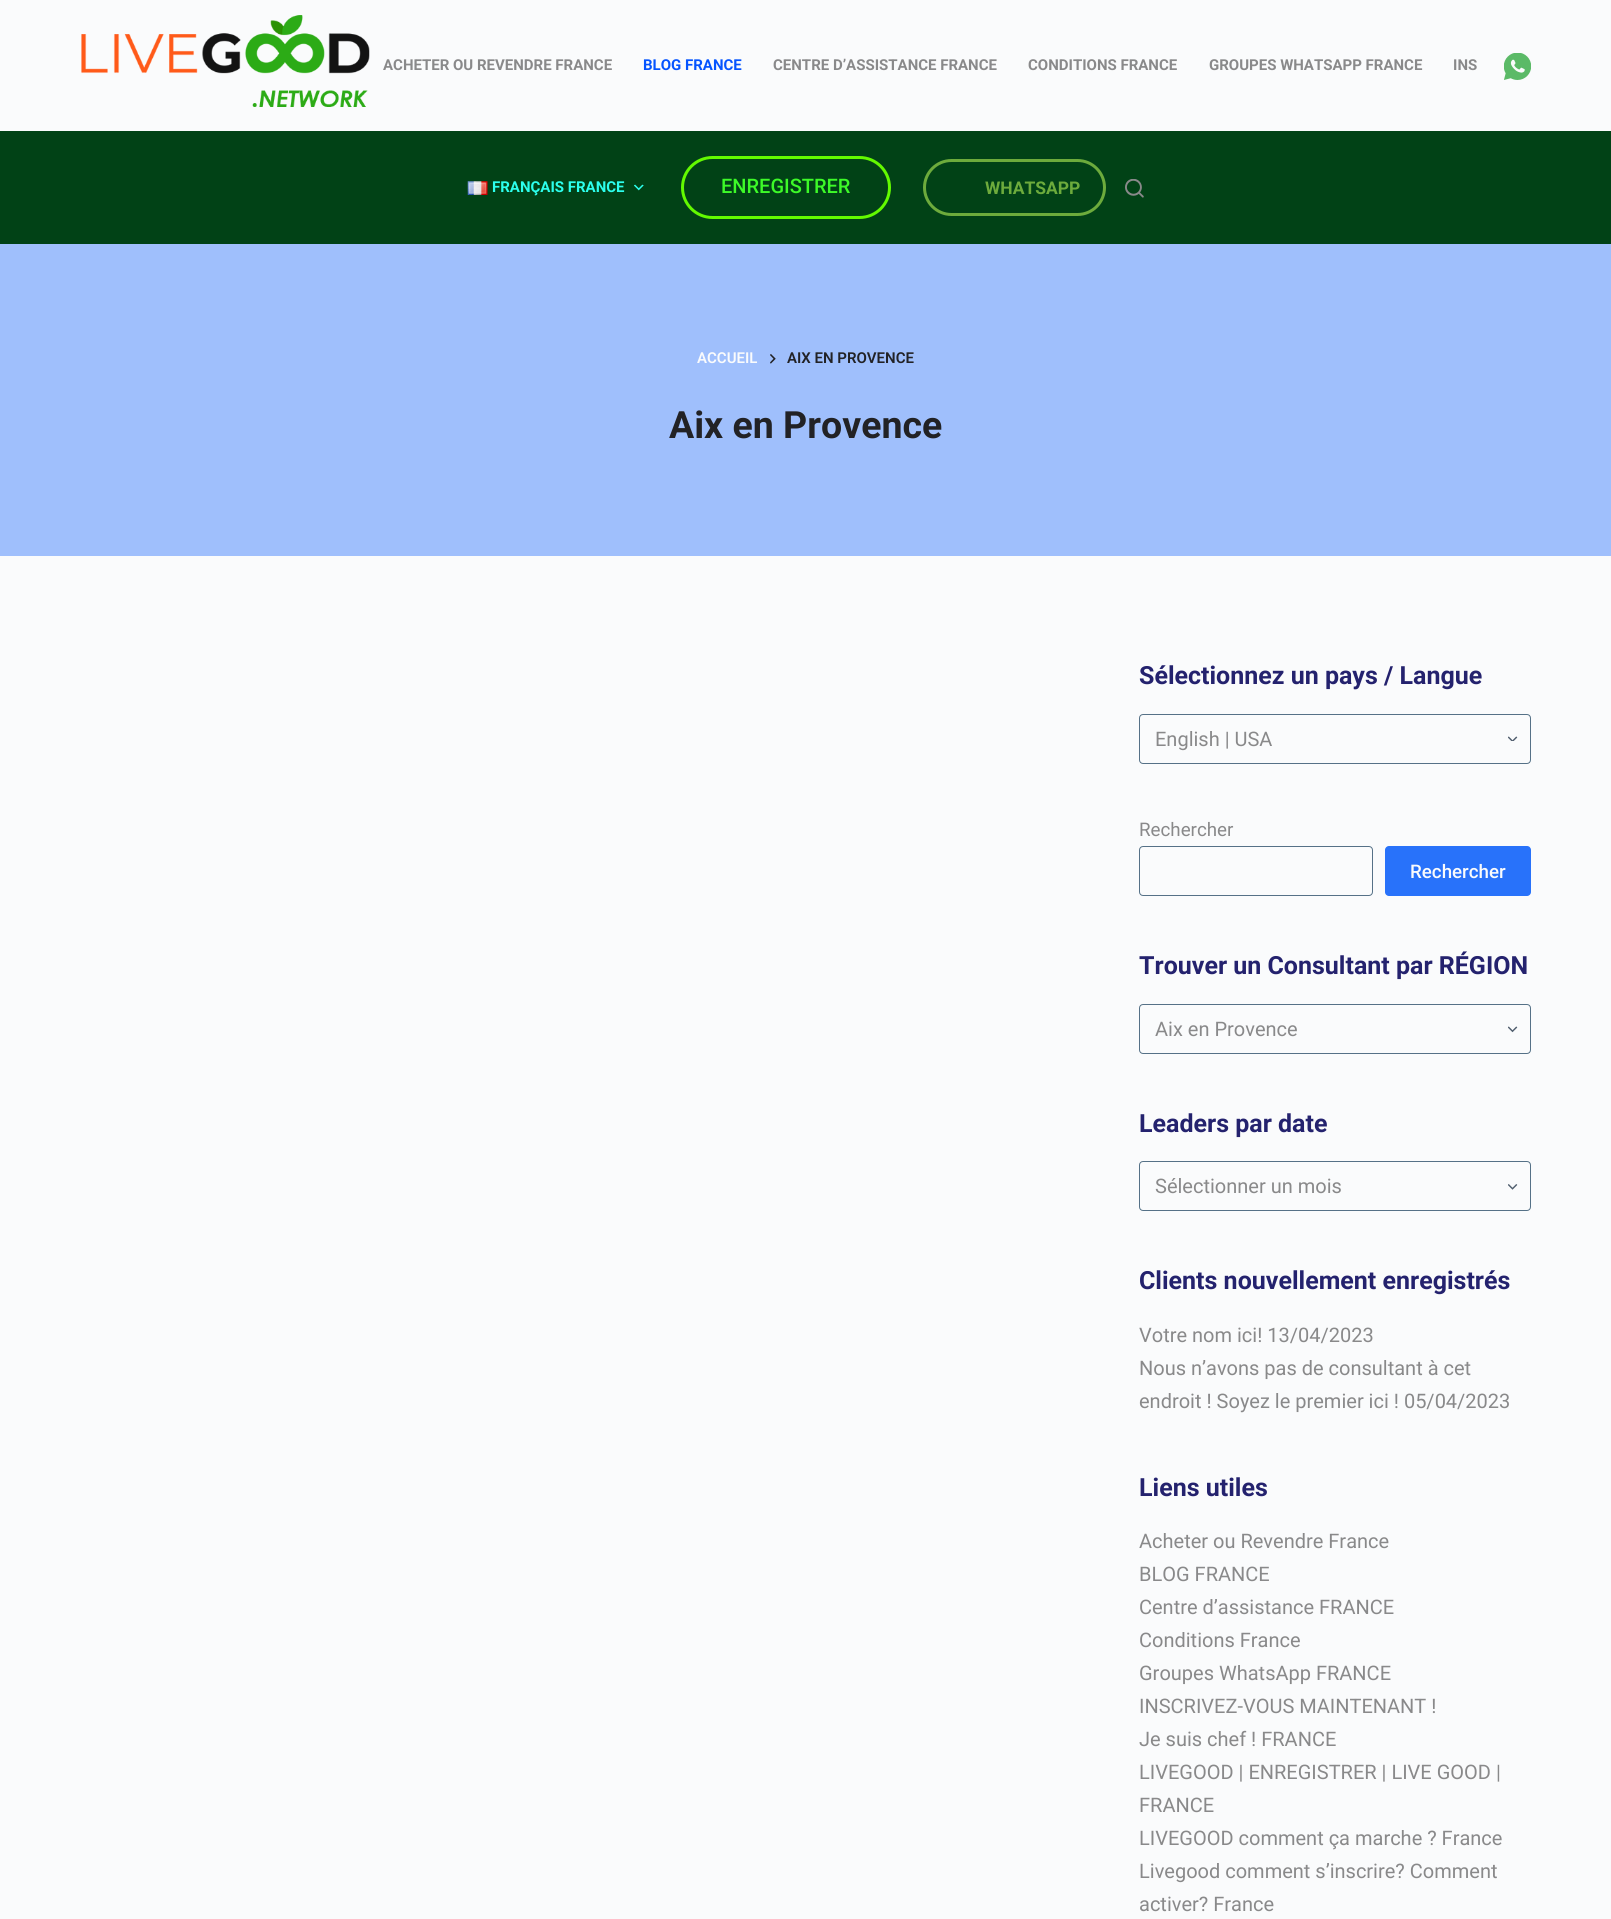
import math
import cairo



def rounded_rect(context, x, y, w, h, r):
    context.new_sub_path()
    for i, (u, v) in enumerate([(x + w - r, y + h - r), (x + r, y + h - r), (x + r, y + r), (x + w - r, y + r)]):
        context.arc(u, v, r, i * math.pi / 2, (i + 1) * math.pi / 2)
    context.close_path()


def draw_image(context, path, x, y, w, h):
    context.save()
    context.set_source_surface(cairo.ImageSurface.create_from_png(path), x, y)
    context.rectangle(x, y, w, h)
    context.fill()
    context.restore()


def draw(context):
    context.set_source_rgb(250 / 255, 251 / 255, 252 / 255)
    context.paint()
    draw_image(context, "images/1.png", 81, 15, 289, 92)
    draw_image(context, "images/2.png", 1504, 53, 27, 27)
    context.set_source_rgb(1 / 255, 66 / 255, 22 / 255)
    context.rectangle(0, 131, 1611, 113)
    context.fill()
    draw_image(context, "images/3.png", 467, 181, 21, 14)
    draw_image(context, "images/4.png", 634, 184, 10, 7)
    rounded_rect(context, 682.5, 157.5, 207, 60, 30)
    context.set_source_rgb(99 / 255, 250 / 255, 0)
    context.set_line_width(3)
    context.stroke()
    rounded_rect(context, 924.5, 160.5, 180, 54, 27)
    context.set_source_rgb(109 / 255, 171 / 255, 60 / 255)
    context.stroke()
    draw_image(context, "images/5.png", 1125, 179, 19, 19)
    context.set_source_rgb(159 / 255, 191 / 255, 252 / 255)
    context.rectangle(0, 244, 1611, 312)
    context.fill()
    draw_image(context, "images/6.png", 770, 354, 6, 10)
    draw_image(context, "images/7.png", 1508, 736, 10, 5)
    rounded_rect(context, 1139.5, 714.5, 391, 49, 3.5)
    context.set_source_rgb(85 / 255, 113 / 255, 135 / 255)
    context.set_line_width(1)
    context.stroke()
    rounded_rect(context, 1139.5, 846.5, 233, 49, 3.5)
    context.stroke()
    context.set_source_rgb(40 / 255, 114 / 255, 250 / 255)
    rounded_rect(context, 1385, 846, 146, 50, 4)
    context.fill()
    draw_image(context, "images/8.png", 1508, 1026, 10, 7)
    rounded_rect(context, 1139.5, 1004.5, 391, 49, 3.5)
    context.set_source_rgb(85 / 255, 113 / 255, 135 / 255)
    context.stroke()
    draw_image(context, "images/9.png", 1508, 1184, 10, 6)
    rounded_rect(context, 1139.5, 1161.5, 391, 49, 3.5)
    context.stroke()
    context.select_font_face("Roboto", cairo.FontSlant.NORMAL, cairo.FontWeight.BOLD)
    context.set_font_size(15)
    context.set_source_rgb(137 / 255, 137 / 255, 138 / 255)
    context.move_to(383, 70)
    context.show_text("ACHETER OU REVENDRE FRANCE")
    context.set_source_rgb(5 / 255, 84 / 255, 1)
    context.move_to(643, 70)
    context.show_text("BLOG FRANCE")
    context.set_source_rgb(137 / 255, 137 / 255, 138 / 255)
    context.move_to(773, 70)
    context.show_text("CENTRE D’ASSISTANCE FRANCE")
    context.move_to(1028, 70)
    context.show_text("CONDITIONS FRANCE")
    context.move_to(1209, 70)
    context.show_text("GROUPES WHATSAPP FRANCE")
    context.move_to(1453, 70)
    context.show_text("INS")
    context.set_source_rgb(44 / 255, 1, 237 / 255)
    context.move_to(492, 192)
    context.show_text("FRANÇAIS FRANCE")
    context.select_font_face("Roboto Medium")
    context.set_font_size(20)
    context.set_source_rgb(61 / 255, 250 / 255, 40 / 255)
    context.move_to(721, 193)
    context.show_text("ENREGISTRER")
    context.select_font_face("Roboto", cairo.FontSlant.NORMAL, cairo.FontWeight.BOLD)
    context.set_font_size(17.5)
    context.set_source_rgb(109 / 255, 171 / 255, 60 / 255)
    context.move_to(985, 194)
    context.show_text("WHATSAPP")
    context.select_font_face("Roboto SemiBold")
    context.set_font_size(15)
    context.set_source_rgb(250 / 255, 251 / 255, 252 / 255)
    context.move_to(697, 363)
    context.show_text("ACCUEIL")
    context.set_source_rgb(34 / 255, 34 / 255, 37 / 255)
    context.move_to(787, 363)
    context.show_text("AIX EN PROVENCE")
    context.select_font_face("Roboto", cairo.FontSlant.NORMAL, cairo.FontWeight.BOLD)
    context.set_font_size(37.5)
    context.move_to(669, 438)
    context.show_text("Aix en Provence")
    context.set_font_size(25)
    context.set_source_rgb(36 / 255, 34 / 255, 110 / 255)
    context.move_to(1139, 684)
    context.show_text("Sélectionnez un pays / Langue")
    context.select_font_face("Roboto")
    context.set_font_size(20)
    context.set_source_rgb(137 / 255, 137 / 255, 138 / 255)
    context.move_to(1155, 746)
    context.show_text("English | USA")
    context.set_font_size(18.75)
    context.move_to(1139, 836)
    context.show_text("Rechercher")
    context.select_font_face("Roboto Medium")
    context.set_source_rgb(250 / 255, 251 / 255, 252 / 255)
    context.move_to(1410, 878)
    context.show_text("Rechercher")
    context.select_font_face("Roboto", cairo.FontSlant.NORMAL, cairo.FontWeight.BOLD)
    context.set_font_size(25)
    context.set_source_rgb(36 / 255, 34 / 255, 110 / 255)
    context.move_to(1139, 974)
    context.show_text("Trouver un Consultant par RÉGION")
    context.select_font_face("Roboto")
    context.set_font_size(20)
    context.set_source_rgb(137 / 255, 137 / 255, 138 / 255)
    context.move_to(1155, 1036)
    context.show_text("Aix en Provence")
    context.select_font_face("Roboto", cairo.FontSlant.NORMAL, cairo.FontWeight.BOLD)
    context.set_font_size(25)
    context.set_source_rgb(36 / 255, 34 / 255, 110 / 255)
    context.move_to(1139, 1132)
    context.show_text("Leaders par date")
    context.select_font_face("Roboto")
    context.set_font_size(20)
    context.set_source_rgb(137 / 255, 137 / 255, 138 / 255)
    context.move_to(1155, 1193)
    context.show_text("Sélectionner un mois")
    context.select_font_face("Roboto", cairo.FontSlant.NORMAL, cairo.FontWeight.BOLD)
    context.set_font_size(25)
    context.set_source_rgb(36 / 255, 34 / 255, 110 / 255)
    context.move_to(1139, 1289)
    context.show_text("Clients nouvellement enregistrés")
    context.select_font_face("Roboto")
    context.set_font_size(20)
    context.set_source_rgb(137 / 255, 137 / 255, 138 / 255)
    context.move_to(1139, 1342)
    context.show_text("Votre nom ici! 13/04/2023")
    context.move_to(1139, 1375)
    context.show_text("Nous n’avons pas de consultant à cet")
    context.move_to(1139, 1408)
    context.show_text("endroit ! Soyez le premier ici ! 05/04/2023")
    context.select_font_face("Roboto", cairo.FontSlant.NORMAL, cairo.FontWeight.BOLD)
    context.set_font_size(25)
    context.set_source_rgb(36 / 255, 34 / 255, 110 / 255)
    context.move_to(1139, 1496)
    context.show_text("Liens utiles")
    context.select_font_face("Roboto")
    context.set_font_size(20)
    context.set_source_rgb(137 / 255, 137 / 255, 138 / 255)
    context.move_to(1139, 1548)
    context.show_text("Acheter ou Revendre France")
    context.move_to(1139, 1581)
    context.show_text("BLOG FRANCE")
    context.move_to(1139, 1614)
    context.show_text("Centre d’assistance FRANCE")
    context.move_to(1139, 1647)
    context.show_text("Conditions France")
    context.move_to(1139, 1680)
    context.show_text("Groupes WhatsApp FRANCE")
    context.move_to(1139, 1713)
    context.show_text("INSCRIVEZ-VOUS MAINTENANT !")
    context.move_to(1139, 1746)
    context.show_text("Je suis chef ! FRANCE")
    context.move_to(1139, 1779)
    context.show_text("LIVEGOOD | ENREGISTRER | LIVE GOOD |")
    context.move_to(1139, 1812)
    context.show_text("FRANCE")
    context.move_to(1139, 1845)
    context.show_text("LIVEGOOD comment ça marche ? France")
    context.move_to(1139, 1878)
    context.show_text("Livegood comment s’inscrire? Comment")
    context.move_to(1139, 1911)
    context.show_text("activer? France")


surface = cairo.ImageSurface(cairo.Format.RGB24, 1611, 1919)
context = cairo.Context(surface)
options = cairo.FontOptions()
options.set_hint_metrics(cairo.HintMetrics.OFF)
options.set_hint_style(cairo.HintStyle.NONE)
context.set_font_options(options)
context.set_miter_limit(4)
draw(context)
surface.write_to_png("out.png")
